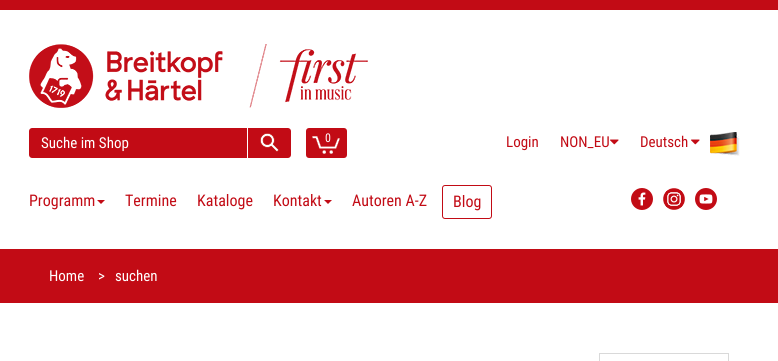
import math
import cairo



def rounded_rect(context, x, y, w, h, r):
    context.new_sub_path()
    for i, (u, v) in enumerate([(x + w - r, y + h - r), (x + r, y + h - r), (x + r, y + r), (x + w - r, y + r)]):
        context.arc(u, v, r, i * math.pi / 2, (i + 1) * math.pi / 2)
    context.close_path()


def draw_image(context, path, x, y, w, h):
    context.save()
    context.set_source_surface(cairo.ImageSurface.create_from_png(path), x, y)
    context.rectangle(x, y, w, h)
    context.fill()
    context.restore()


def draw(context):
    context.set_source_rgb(1, 1, 1)
    context.paint()
    context.set_source_rgb(194 / 255, 11 / 255, 21 / 255)
    context.rectangle(0, 0, 778, 10)
    context.fill()
    draw_image(context, "images/1.png", 29, 44, 339, 64)
    context.new_path()
    context.move_to(32, 128)
    context.line_to(247, 128)
    context.line_to(247, 158)
    context.line_to(32, 158)
    context.curve_to(30.5, 158, 29, 156.5, 29, 155)
    context.line_to(29, 131)
    context.curve_to(29, 129.5, 30.5, 128, 32, 128)
    context.close_path()
    context.fill()
    context.new_path()
    context.move_to(247, 128)
    context.line_to(288, 128)
    context.curve_to(289.5, 128, 291, 129.5, 291, 131)
    context.line_to(291, 155)
    context.curve_to(291, 156.5, 289.5, 158, 288, 158)
    context.line_to(247, 158)
    context.close_path()
    context.fill()
    draw_image(context, "images/2.png", 260, 133, 19, 19)
    context.set_source_rgb(1, 1, 1)
    context.rectangle(247, 128, 1, 30)
    context.fill()
    context.set_source_rgb(194 / 255, 11 / 255, 21 / 255)
    rounded_rect(context, 306, 128, 41, 30, 3)
    context.fill()
    draw_image(context, "images/3.png", 312, 136, 28, 18)
    draw_image(context, "images/4.png", 610, 139, 9, 6)
    draw_image(context, "images/4.png", 691, 139, 9, 6)
    draw_image(context, "images/5.png", 710, 132, 30, 24)
    context.new_path()
    context.move_to(97, 200)
    context.line_to(105, 200)
    context.line_to(101, 204)
    context.close_path()
    context.fill()
    context.new_path()
    context.move_to(324, 200)
    context.line_to(332, 200)
    context.line_to(328, 204)
    context.close_path()
    context.fill()
    rounded_rect(context, 442.5, 185.5, 49, 33, 2.5)
    context.set_line_width(1)
    context.stroke()
    draw_image(context, "images/6.png", 631, 188, 22, 22)
    draw_image(context, "images/7.png", 663, 188, 22, 22)
    draw_image(context, "images/8.png", 695, 188, 22, 22)
    context.rectangle(0, 249, 778, 54)
    context.fill()
    context.rectangle(599.5, 353.5, 129, 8)
    context.set_source_rgb(217 / 255, 217 / 255, 217 / 255)
    context.stroke()
    context.select_font_face("Roboto Condensed")
    context.set_font_size(15)
    context.set_source_rgb(1, 1, 1)
    context.move_to(41, 148)
    context.show_text("Suche im Shop")
    context.set_font_size(12)
    context.move_to(325, 142)
    context.show_text("0")
    context.set_font_size(15)
    context.set_source_rgb(194 / 255, 11 / 255, 21 / 255)
    context.move_to(506, 147)
    context.show_text("Login")
    context.move_to(560, 147)
    context.show_text("NON_EU")
    context.move_to(640, 147)
    context.show_text("Deutsch")
    context.set_font_size(16)
    context.move_to(29, 206)
    context.show_text("Programm")
    context.move_to(125, 206)
    context.show_text("Termine")
    context.move_to(197, 206)
    context.show_text("Kataloge")
    context.move_to(273, 206)
    context.show_text("Kontakt")
    context.move_to(352, 206)
    context.show_text("Autoren A-Z")
    context.move_to(453, 207)
    context.show_text("Blog")
    context.set_font_size(15)
    context.set_source_rgb(1, 1, 1)
    context.move_to(49, 281)
    context.show_text("Home")
    context.move_to(98, 281)
    context.show_text(">")
    context.move_to(115, 281)
    context.show_text("suchen")


surface = cairo.ImageSurface(cairo.Format.RGB24, 778, 361)
context = cairo.Context(surface)
options = cairo.FontOptions()
options.set_hint_metrics(cairo.HintMetrics.OFF)
options.set_hint_style(cairo.HintStyle.NONE)
context.set_font_options(options)
context.set_miter_limit(4)
draw(context)
surface.write_to_png("out.png")
